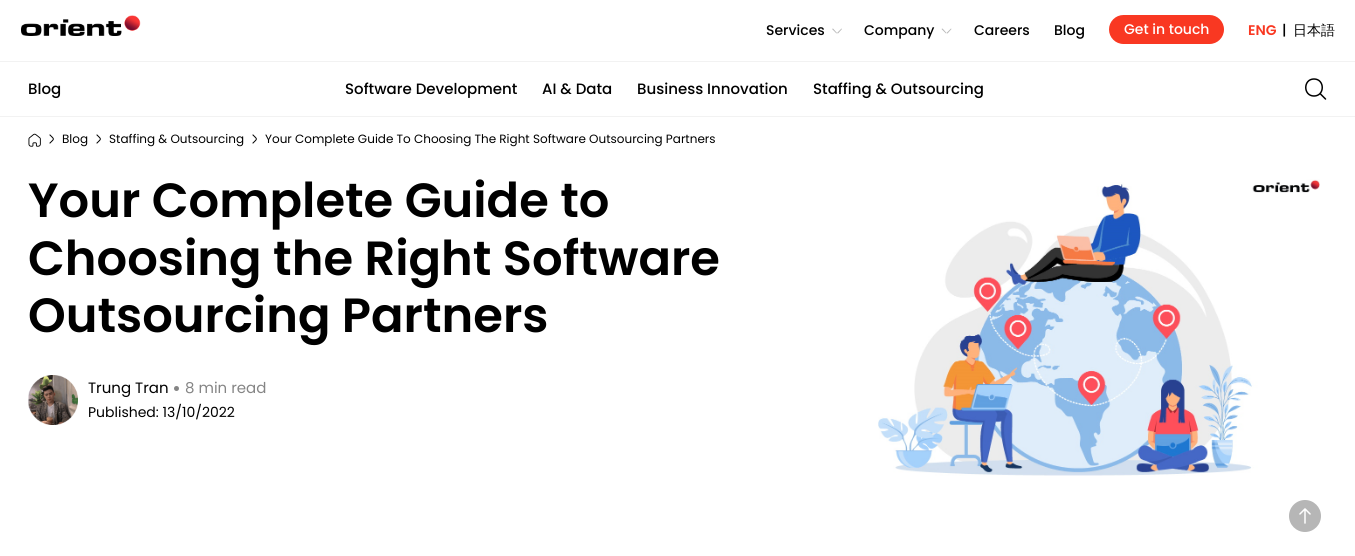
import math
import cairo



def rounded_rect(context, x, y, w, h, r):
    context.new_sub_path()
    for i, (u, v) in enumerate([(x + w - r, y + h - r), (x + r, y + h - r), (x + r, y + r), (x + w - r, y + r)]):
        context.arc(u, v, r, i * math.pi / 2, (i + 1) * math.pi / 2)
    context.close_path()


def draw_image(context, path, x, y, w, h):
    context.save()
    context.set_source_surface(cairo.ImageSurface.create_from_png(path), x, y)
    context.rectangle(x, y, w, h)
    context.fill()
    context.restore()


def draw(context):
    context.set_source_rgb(1, 1, 1)
    context.paint()
    context.set_source_rgb(242 / 255, 242 / 255, 242 / 255)
    context.rectangle(0, 61, 1355, 1)
    context.fill()
    draw_image(context, "images/1.png", 21, 15, 120, 21)
    context.set_source_rgb(182 / 255, 182 / 255, 182 / 255)
    context.new_path()
    context.move_to(832, 29)
    context.line_to(833, 28.5)
    context.line_to(837, 33)
    context.line_to(836.5, 33.5)
    context.close_path()
    context.move_to(841.5, 28.5)
    context.line_to(842, 29)
    context.line_to(838, 33.5)
    context.line_to(837, 33)
    context.close_path()
    context.fill()
    context.new_path()
    context.move_to(941.5, 29)
    context.line_to(942.5, 28.5)
    context.line_to(946.5, 33)
    context.line_to(946, 33.5)
    context.close_path()
    context.fill()
    context.new_path()
    context.move_to(951, 28.5)
    context.line_to(951.5, 29)
    context.line_to(947.5, 33.5)
    context.line_to(946.5, 33)
    context.close_path()
    context.fill()
    context.set_source_rgb(249 / 255, 56 / 255, 34 / 255)
    rounded_rect(context, 1109, 15, 115, 29, 14.5)
    context.fill()
    context.set_source_rgb(242 / 255, 242 / 255, 242 / 255)
    context.rectangle(0, 116, 1355, 1)
    context.fill()
    context.new_path()
    context.move_to(1314, 96)
    context.curve_to(1325, 96, 1325, 79, 1314, 79)
    context.curve_to(1303, 79, 1303, 96, 1314, 96)
    context.close_path()
    context.move_to(1325.5, 99)
    context.line_to(1320.5, 94)
    context.set_source_rgb(0, 0, 0)
    context.set_line_width(1.5)
    context.set_line_cap(cairo.LineCap.ROUND)
    context.set_line_join(cairo.LineJoin.ROUND)
    context.stroke()
    draw_image(context, "images/2.png", 28, 133, 13, 14)
    context.new_path()
    context.move_to(50, 135)
    context.curve_to(54.5, 139.5, 54.5, 138.5, 50, 143)
    context.set_line_width(1)
    context.set_line_cap(cairo.LineCap.SQUARE)
    context.stroke()
    context.new_path()
    context.move_to(97, 135)
    context.curve_to(101.5, 139.5, 101.5, 138.5, 97, 143)
    context.stroke()
    context.new_path()
    context.move_to(253, 135)
    context.curve_to(257.5, 139.5, 257.5, 138.5, 253, 143)
    context.stroke()
    draw_image(context, "images/3.png", 28, 375, 50, 50)
    context.set_source_rgb(133 / 255, 133 / 255, 133 / 255)
    context.arc(176.5, 388.5, 2.5, 0, 2 * math.pi)
    context.fill()
    draw_image(context, "images/4.png", 878, 179, 442, 297)
    draw_image(context, "images/5.png", 1289, 500, 32, 32)
    context.select_font_face("Poppins Medium")
    context.set_font_size(14)
    context.set_source_rgb(0, 0, 0)
    context.move_to(766, 35)
    context.show_text("Services")
    context.move_to(864, 35)
    context.show_text("Company")
    context.move_to(974, 35)
    context.show_text("Careers")
    context.move_to(1054, 35)
    context.show_text("Blog")
    context.set_source_rgb(1, 1, 1)
    context.move_to(1124, 34)
    context.show_text("Get in touch")
    context.select_font_face("Poppins SemiBold")
    context.set_source_rgb(249 / 255, 56 / 255, 34 / 255)
    context.move_to(1248, 35)
    context.show_text("ENG")
    context.select_font_face("Poppins Medium")
    context.set_source_rgb(0, 0, 0)
    context.move_to(1282, 35)
    context.show_text("|")
    context.select_font_face("WenQuanYi Zen Hei Medium")
    context.move_to(1293, 35)
    context.show_text("日本語")
    context.select_font_face("Poppins Medium")
    context.set_font_size(15)
    context.move_to(28, 94)
    context.show_text("Blog")
    context.move_to(345, 94)
    context.show_text("Software Development")
    context.move_to(542, 94)
    context.show_text("AI & Data")
    context.move_to(637, 94)
    context.show_text("Business Innovation")
    context.move_to(813, 94)
    context.show_text("Staffing & Outsourcing")
    context.select_font_face("Poppins")
    context.set_font_size(12)
    context.move_to(62, 143)
    context.show_text("Blog")
    context.move_to(109, 143)
    context.show_text("Staffing & Outsourcing")
    context.move_to(265, 143)
    context.show_text("Your Complete Guide To Choosing The Right Software Outsourcing Partners")
    context.select_font_face("Poppins SemiBold")
    context.set_font_size(48)
    context.move_to(28, 217)
    context.show_text("Your Complete Guide to")
    context.move_to(28, 275)
    context.show_text("Choosing the Right Software")
    context.move_to(28, 332)
    context.show_text("Outsourcing Partners")
    context.select_font_face("Poppins")
    context.set_font_size(15)
    context.move_to(88, 393)
    context.show_text("Trung Tran")
    context.set_source_rgb(133 / 255, 133 / 255, 133 / 255)
    context.move_to(185, 393)
    context.show_text("8 min read")
    context.set_font_size(14)
    context.set_source_rgb(0, 0, 0)
    context.move_to(88, 417)
    context.show_text("Published: 13/10/2022")


surface = cairo.ImageSurface(cairo.Format.RGB24, 1355, 556)
context = cairo.Context(surface)
options = cairo.FontOptions()
options.set_hint_metrics(cairo.HintMetrics.OFF)
options.set_hint_style(cairo.HintStyle.NONE)
context.set_font_options(options)
context.set_miter_limit(4)
draw(context)
surface.write_to_png("out.png")
